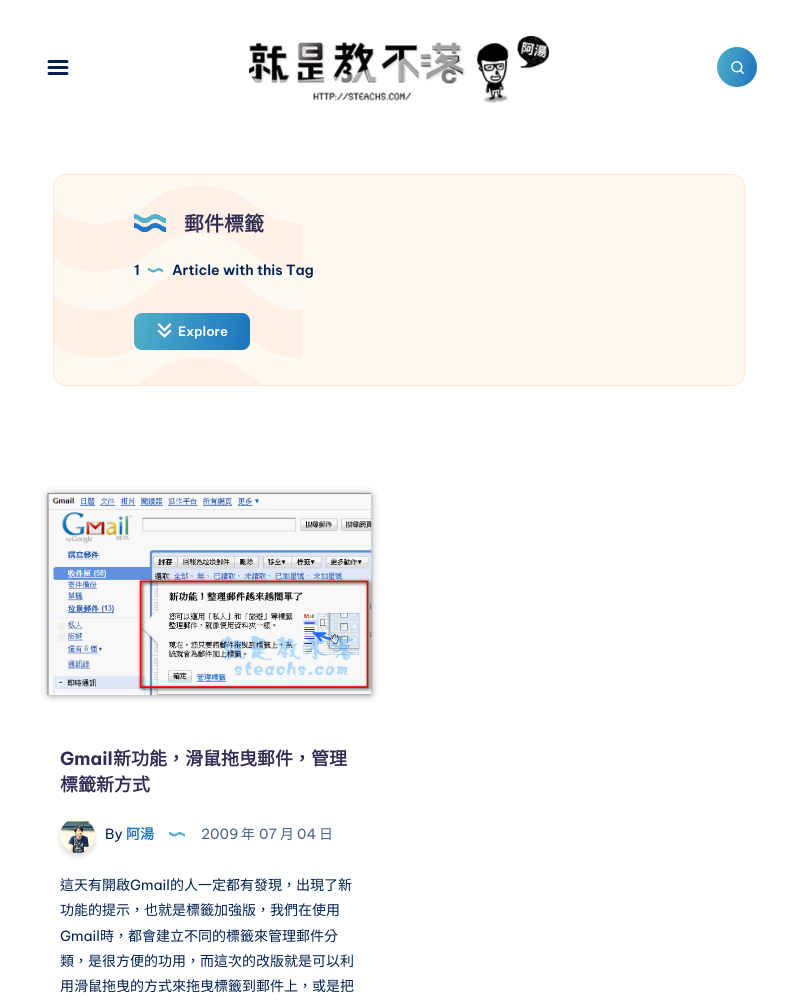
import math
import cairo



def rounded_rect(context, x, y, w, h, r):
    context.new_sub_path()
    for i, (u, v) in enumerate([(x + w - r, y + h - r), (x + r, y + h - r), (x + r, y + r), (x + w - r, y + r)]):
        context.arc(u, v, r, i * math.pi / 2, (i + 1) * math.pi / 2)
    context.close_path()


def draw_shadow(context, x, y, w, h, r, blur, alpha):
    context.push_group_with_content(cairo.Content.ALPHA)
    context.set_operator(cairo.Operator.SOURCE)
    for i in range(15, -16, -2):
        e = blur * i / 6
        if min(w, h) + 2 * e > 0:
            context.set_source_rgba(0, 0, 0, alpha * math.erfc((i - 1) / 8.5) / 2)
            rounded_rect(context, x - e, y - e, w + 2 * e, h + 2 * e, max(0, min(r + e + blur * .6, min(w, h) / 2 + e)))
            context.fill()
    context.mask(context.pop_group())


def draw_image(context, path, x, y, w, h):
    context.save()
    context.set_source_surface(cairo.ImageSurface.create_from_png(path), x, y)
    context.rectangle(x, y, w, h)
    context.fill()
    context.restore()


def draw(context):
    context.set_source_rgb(1, 1, 1)
    context.paint()
    draw_image(context, "images/1.png", 47, 60, 22, 15)
    draw_image(context, "images/2.png", 248, 36, 301, 67)
    gradient = cairo.LinearGradient(714, 62, 760, 72)
    gradient.add_color_stop_rgba(0, 80 / 255, 177 / 255, 201 / 255, 1)
    gradient.add_color_stop_rgba(1, 30 / 255, 115 / 255, 190 / 255, 1)
    context.set_source(gradient)
    context.arc(737, 67, 20, 0, 2 * math.pi)
    context.fill()
    draw_image(context, "images/3.png", 731, 61, 13, 13)
    context.set_source_rgb(1, 249 / 255, 243 / 255)
    rounded_rect(context, 53.5, 174.5, 691, 211, 12.5)
    context.fill_preserve()
    context.set_source_rgb(1, 231 / 255, 210 / 255)
    context.set_line_width(1)
    context.stroke()
    draw_image(context, "images/4.png", 54, 185, 249, 200)
    draw_image(context, "images/5.png", 134, 214, 32, 18)
    draw_image(context, "images/6.png", 148, 268, 15, 5)
    gradient = cairo.LinearGradient(133, 318, 251, 345)
    gradient.add_color_stop_rgba(0, 80 / 255, 177 / 255, 201 / 255, 1)
    gradient.add_color_stop_rgba(1, 30 / 255, 115 / 255, 190 / 255, 1)
    context.set_source(gradient)
    rounded_rect(context, 134, 313, 116, 37, 8)
    context.fill()
    draw_image(context, "images/7.png", 157, 323, 15, 15)
    draw_image(context, "images/8.png", 40, 486, 339, 217)
    context.set_source_rgb(0, 0, 0)
    draw_shadow(context, 60, 821, 35, 35, 17.5, 2.5, 0.15)
    draw_image(context, "images/9.png", 60, 818, 35, 35)
    draw_image(context, "images/10.png", 169, 832, 16, 5)
    context.select_font_face("Noto Sans CJK TC", cairo.FontSlant.NORMAL, cairo.FontWeight.BOLD)
    context.set_font_size(20)
    context.set_source_rgb(48 / 255, 45 / 255, 85 / 255)
    context.move_to(184, 231)
    context.show_text("郵件標籤")
    context.select_font_face("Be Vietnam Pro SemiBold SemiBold")
    context.set_font_size(14)
    context.set_source_rgb(0, 32 / 255, 80 / 255)
    context.move_to(134, 275)
    context.show_text("1")
    context.move_to(172, 275)
    context.show_text("Article with this Tag")
    context.set_font_size(13)
    context.set_source_rgb(1, 1, 1)
    context.move_to(178, 336)
    context.show_text("Explore")
    context.select_font_face("Be Vietnam Pro", cairo.FontSlant.NORMAL, cairo.FontWeight.BOLD)
    context.set_font_size(18)
    context.set_source_rgb(48 / 255, 45 / 255, 85 / 255)
    context.move_to(60, 765)
    context.show_text("Gmail")
    context.select_font_face("Noto Sans CJK TC", cairo.FontSlant.NORMAL, cairo.FontWeight.BOLD)
    context.move_to(113, 765)
    context.show_text("新功能，滑鼠拖曳郵件，管理")
    context.move_to(60, 791)
    context.show_text("標籤新方式")
    context.select_font_face("Be Vietnam Pro")
    context.set_font_size(14)
    context.set_source_rgb(0, 32 / 255, 80 / 255)
    context.move_to(105, 839)
    context.show_text("By")
    context.select_font_face("Noto Sans CJK TC", cairo.FontSlant.NORMAL, cairo.FontWeight.BOLD)
    context.set_source_rgb(30 / 255, 115 / 255, 190 / 255)
    context.move_to(126, 839)
    context.show_text("阿湯")
    context.select_font_face("Be Vietnam Pro")
    context.set_source_rgb(77 / 255, 99 / 255, 133 / 255)
    context.move_to(201, 839)
    context.show_text("2009")
    context.select_font_face("Noto Sans CJK TC")
    context.move_to(241, 839)
    context.show_text("年")
    context.select_font_face("Be Vietnam Pro")
    context.move_to(259, 839)
    context.show_text("07")
    context.select_font_face("Noto Sans CJK TC")
    context.move_to(280, 839)
    context.show_text("月")
    context.select_font_face("Be Vietnam Pro")
    context.move_to(297, 839)
    context.show_text("04")
    context.select_font_face("Noto Sans CJK TC")
    context.move_to(319, 839)
    context.show_text("日")
    context.set_source_rgb(0, 32 / 255, 80 / 255)
    context.move_to(60, 890)
    context.show_text("這天有開啟")
    context.select_font_face("Be Vietnam Pro")
    context.move_to(130, 890)
    context.show_text("Gmail")
    context.select_font_face("Noto Sans CJK TC")
    context.move_to(170, 890)
    context.show_text("的人一定都有發現，出現了新")
    context.move_to(60, 915)
    context.show_text("功能的提示，也就是標籤加強版，我們在使用")
    context.select_font_face("Be Vietnam Pro")
    context.move_to(60, 941)
    context.show_text("Gmail")
    context.select_font_face("Noto Sans CJK TC")
    context.move_to(100, 941)
    context.show_text("時，都會建立不同的標籤來管理郵件分")
    context.move_to(60, 966)
    context.show_text("類，是很方便的功用，而這次的改版就是可以利")
    context.move_to(60, 991)
    context.show_text("用滑鼠拖曳的方式來拖曳標籤到郵件上，或是把")


surface = cairo.ImageSurface(cairo.Format.RGB24, 797, 1004)
context = cairo.Context(surface)
options = cairo.FontOptions()
options.set_hint_metrics(cairo.HintMetrics.OFF)
options.set_hint_style(cairo.HintStyle.NONE)
context.set_font_options(options)
context.set_miter_limit(4)
draw(context)
surface.write_to_png("out.png")
